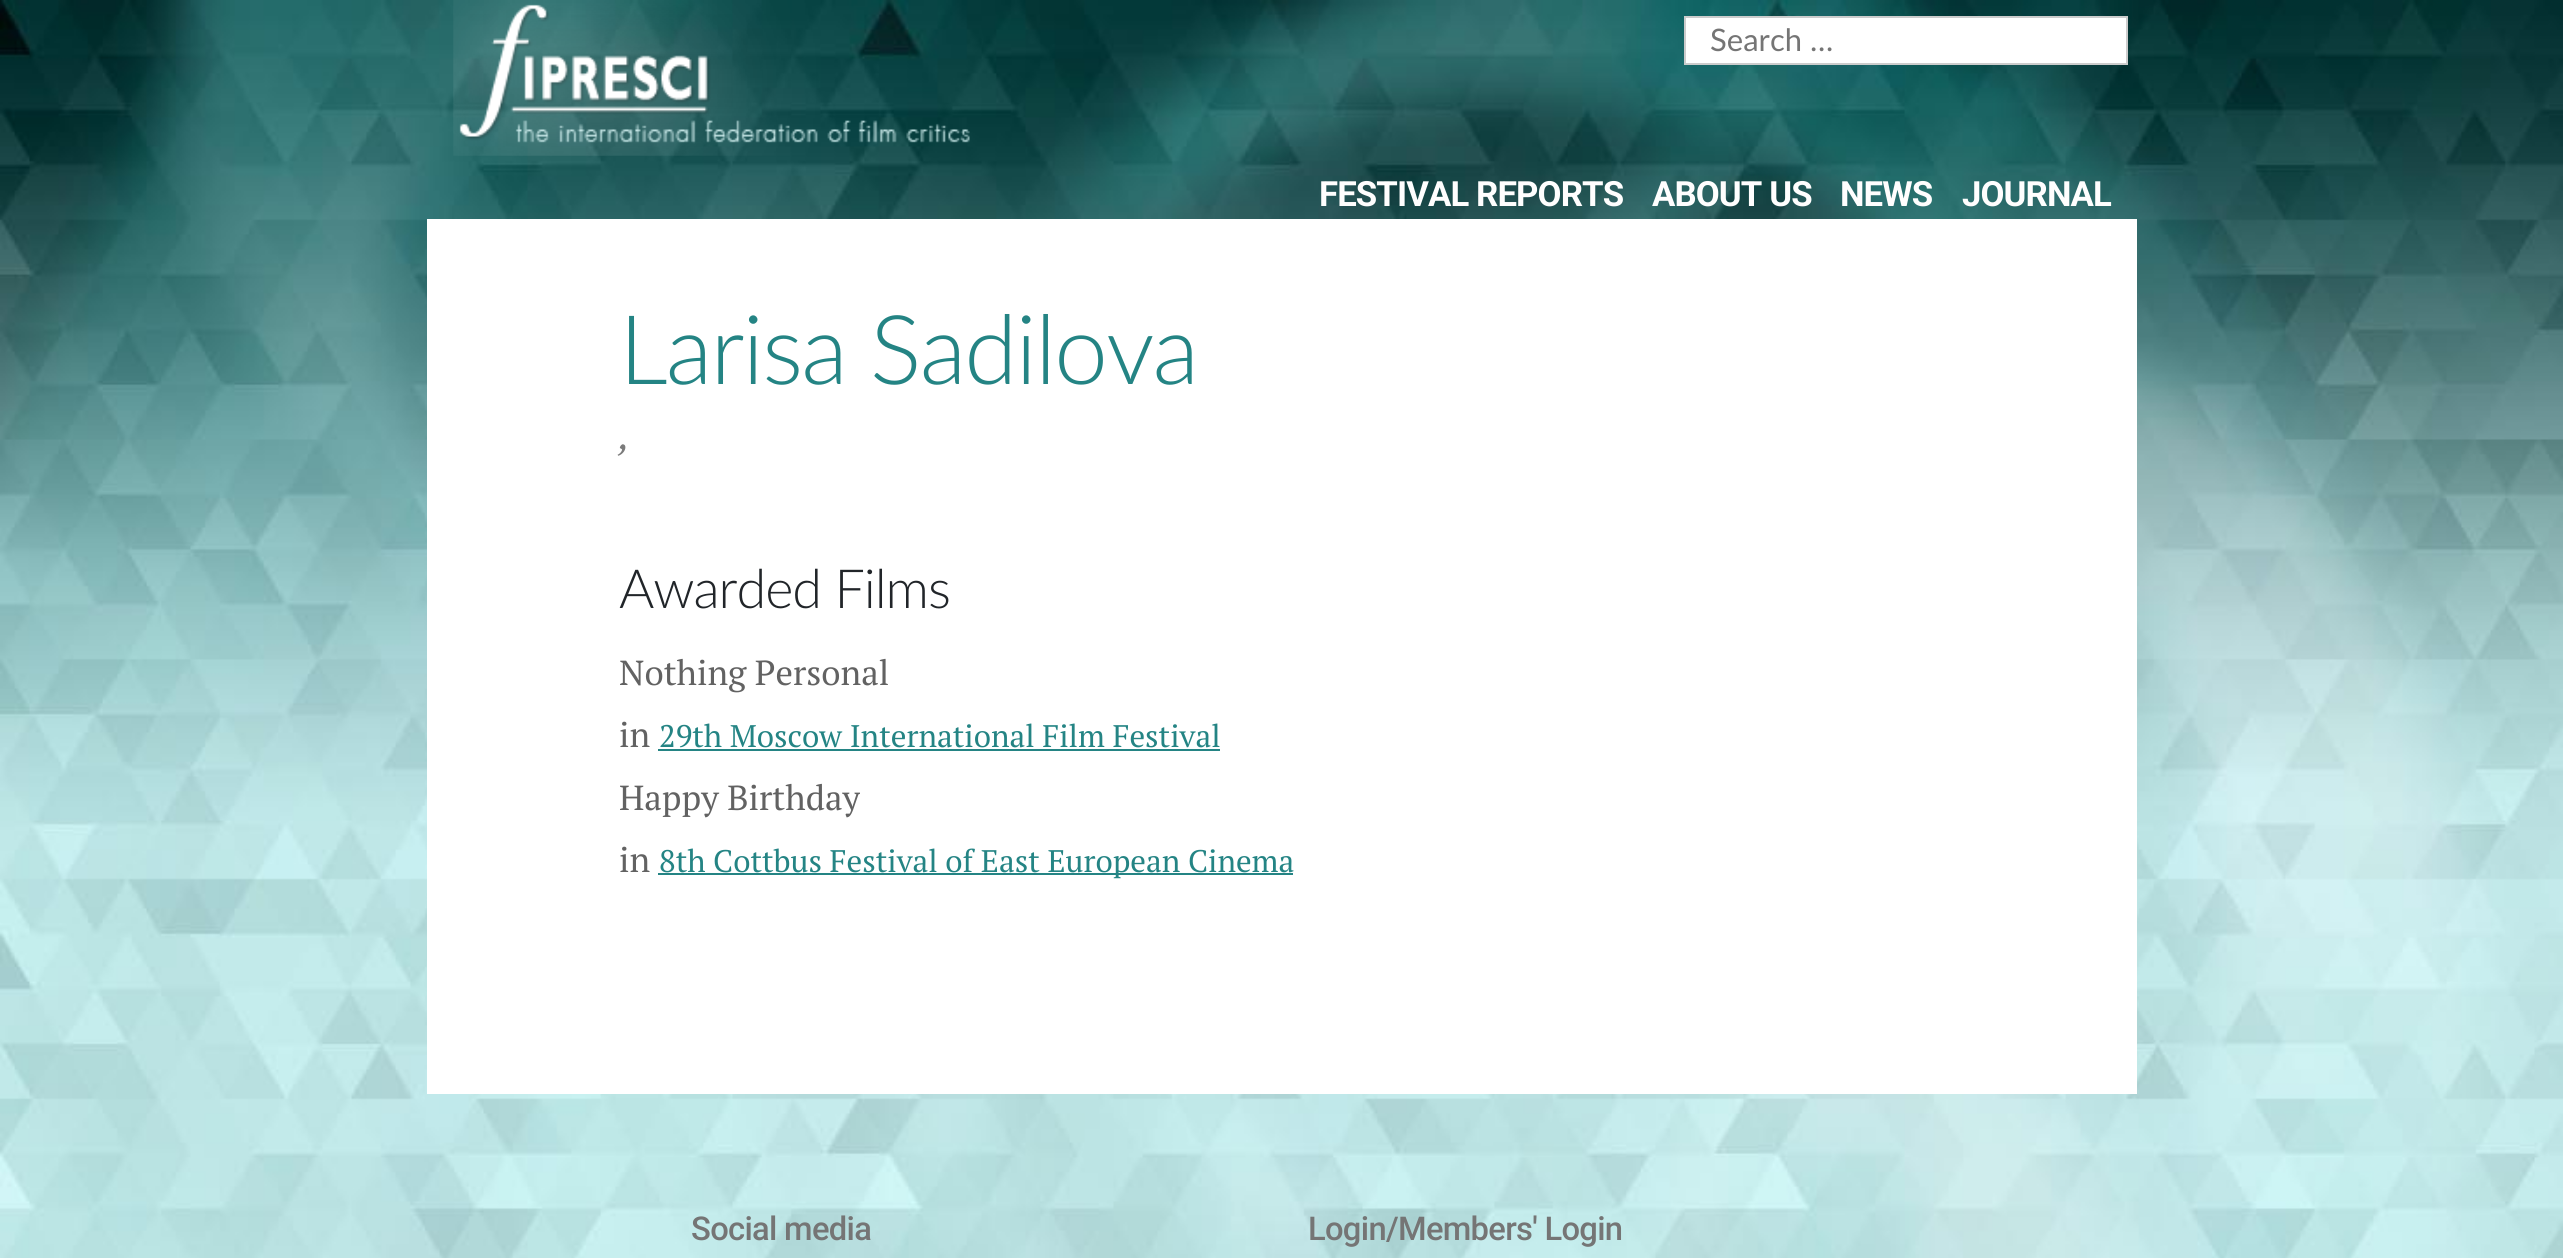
import math
import cairo



def draw_spaced(context, x, y, s, letter, word):
    context.move_to(x, y)
    for ch in s:
        context.show_text(ch)
        context.rel_move_to(letter + word * (ch == ' '), 0)


def draw_image(context, path, x, y, w, h):
    context.save()
    context.set_source_surface(cairo.ImageSurface.create_from_png(path), x, y)
    context.rectangle(x, y, w, h)
    context.fill()
    context.restore()


def draw(context):
    context.set_source_rgb(1, 1, 1)
    context.paint()
    draw_image(context, "images/1.png", 0, 0, 2563, 1258)
    context.set_source_rgb(1, 1, 1)
    context.rectangle(1685, 17, 442, 47)
    context.fill_preserve()
    context.set_source_rgb(204 / 255, 204 / 255, 204 / 255)
    context.stroke()
    draw_image(context, "images/2.png", 453, 0, 517, 156)
    context.set_source_rgb(1, 1, 1)
    context.rectangle(427, 219, 1710, 875)
    context.fill()
    context.set_source_rgb(36 / 255, 132 / 255, 132 / 255)
    context.rectangle(658, 749, 562, 2)
    context.fill()
    context.rectangle(658, 873, 635, 2)
    context.fill()
    context.select_font_face("Lato")
    context.set_font_size(31)
    context.set_source_rgb(117 / 255, 117 / 255, 117 / 255)
    context.move_to(1710, 51)
    context.show_text("Search …")
    context.select_font_face("Roboto", cairo.FontSlant.NORMAL, cairo.FontWeight.BOLD)
    context.set_font_size(34.75)
    context.set_source_rgb(1, 254 / 255, 254 / 255)
    draw_spaced(context, 1319, 206, "FESTIVAL REPORTS", -0.9, 0)
    draw_spaced(context, 1652, 206, "ABOUT US", -0.9, 0)
    draw_spaced(context, 1840, 206, "NEWS", -0.9, 0)
    draw_spaced(context, 1962, 206, "JOURNAL", -0.9, 0)
    context.select_font_face("Lato Light")
    context.set_font_size(96.25)
    context.set_source_rgb(36 / 255, 132 / 255, 132 / 255)
    draw_spaced(context, 619, 384, "Larisa Sadilova", -1.9, 0)
    context.select_font_face("PT Serif", cairo.FontSlant.ITALIC)
    context.set_font_size(38)
    context.set_source_rgb(123 / 255, 123 / 255, 123 / 255)
    context.move_to(619, 449)
    context.show_text(",")
    context.select_font_face("Lato Light")
    context.set_font_size(54)
    context.set_source_rgb(33 / 255, 37 / 255, 41 / 255)
    draw_spaced(context, 619, 608, "Awarded Films", -1.1, 0)
    context.select_font_face("PT Serif")
    context.set_font_size(34.75)
    context.set_source_rgb(98 / 255, 98 / 255, 98 / 255)
    context.move_to(619, 685)
    context.show_text("Nothing Personal")
    context.move_to(619, 747)
    context.show_text("in")
    context.set_font_size(31.2)
    context.set_source_rgb(36 / 255, 132 / 255, 132 / 255)
    context.move_to(659, 747)
    context.show_text("29th Moscow International Film Festival")
    context.set_font_size(34.75)
    context.set_source_rgb(98 / 255, 98 / 255, 98 / 255)
    context.move_to(619, 810)
    context.show_text("Happy Birthday")
    context.move_to(619, 872)
    context.show_text("in")
    context.set_font_size(31.2)
    context.set_source_rgb(36 / 255, 132 / 255, 132 / 255)
    context.move_to(659, 872)
    context.show_text("8th Cottbus Festival of East European Cinema")
    context.select_font_face("Roboto Medium")
    context.set_font_size(32.75)
    context.set_source_rgb(117 / 255, 117 / 255, 117 / 255)
    draw_spaced(context, 691, 1240, "Social media", -0.7, 0)
    draw_spaced(context, 1308, 1240, "Login/Members' Login", -0.7, 0)


surface = cairo.ImageSurface(cairo.Format.RGB24, 2563, 1258)
context = cairo.Context(surface)
options = cairo.FontOptions()
options.set_hint_metrics(cairo.HintMetrics.OFF)
options.set_hint_style(cairo.HintStyle.NONE)
context.set_font_options(options)
context.set_miter_limit(4)
draw(context)
surface.write_to_png("out.png")
